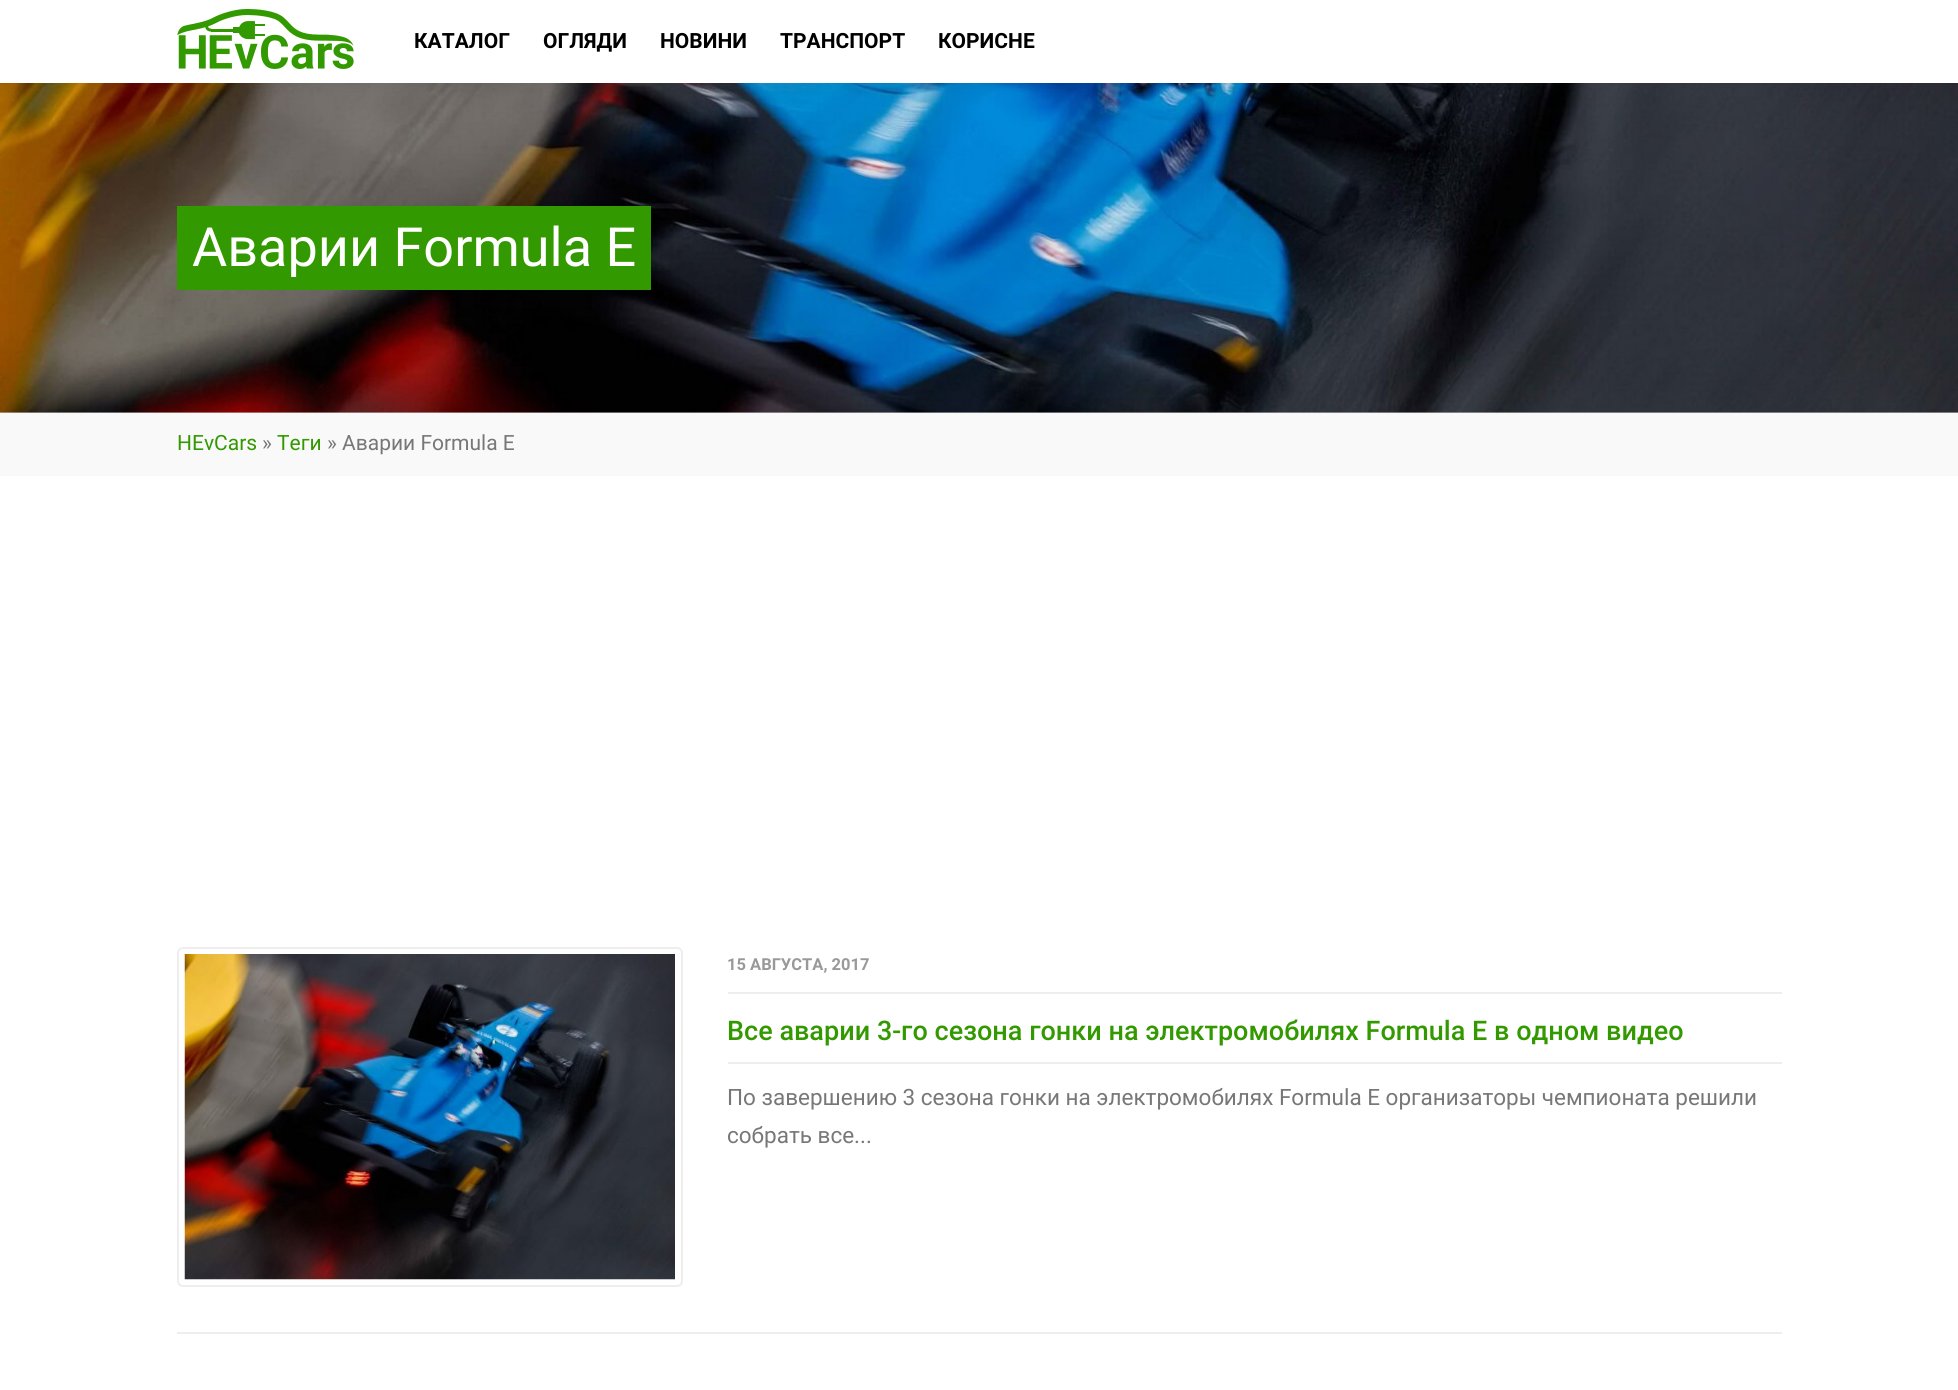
import math
import cairo



def rounded_rect(context, x, y, w, h, r):
    context.new_sub_path()
    for i, (u, v) in enumerate([(x + w - r, y + h - r), (x + r, y + h - r), (x + r, y + r), (x + w - r, y + r)]):
        context.arc(u, v, r, i * math.pi / 2, (i + 1) * math.pi / 2)
    context.close_path()


def draw_shadow(context, x, y, w, h, r, blur, alpha):
    context.push_group_with_content(cairo.Content.ALPHA)
    context.set_operator(cairo.Operator.SOURCE)
    for i in range(15, -16, -2):
        e = blur * i / 6
        if min(w, h) + 2 * e > 0:
            context.set_source_rgba(0, 0, 0, alpha * math.erfc((i - 1) / 8.5) / 2)
            rounded_rect(context, x - e, y - e, w + 2 * e, h + 2 * e, max(0, min(r + e + blur * .6, min(w, h) / 2 + e)))
            context.fill()
    context.mask(context.pop_group())


def draw_image(context, path, x, y, w, h):
    context.save()
    context.set_source_surface(cairo.ImageSurface.create_from_png(path), x, y)
    context.rectangle(x, y, w, h)
    context.fill()
    context.restore()


def draw(context):
    context.set_source_rgb(1, 1, 1)
    context.paint()
    context.set_source_rgb(204 / 255, 204 / 255, 204 / 255)
    context.rectangle(0, 412, 1958, 1)
    context.fill()
    draw_image(context, "images/2.png", 0, 83, 1958, 330)
    context.set_source_rgb(51 / 255, 51 / 255, 51 / 255)
    draw_shadow(context, 0, 2, 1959, 82, 0, 6, 0.1)
    context.set_source_rgb(1, 1, 1)
    context.rectangle(0, 0, 1958, 83)
    context.fill()
    draw_image(context, "images/1.png", 177, 9, 177, 60)
    context.set_source_rgb(51 / 255, 153 / 255, 0)
    context.rectangle(177, 206, 474, 84)
    context.fill()
    context.set_source_rgb(249 / 255, 249 / 255, 249 / 255)
    context.rectangle(0, 413, 1958, 63)
    context.fill()
    context.set_source_rgb(238 / 255, 238 / 255, 238 / 255)
    context.rectangle(177, 1332, 1605, 2)
    context.fill()
    rounded_rect(context, 178, 948, 504, 338, 5)
    context.stroke()
    draw_image(context, "images/3.png", 184, 954, 491, 326)
    context.rectangle(728, 992, 1054, 2)
    context.fill()
    context.rectangle(728, 1062, 1054, 2)
    context.fill()
    context.select_font_face("Roboto", cairo.FontSlant.NORMAL, cairo.FontWeight.BOLD)
    context.set_font_size(21)
    context.set_source_rgb(0, 0, 0)
    context.move_to(414, 48)
    context.show_text("КАТАЛОГ")
    context.move_to(543, 48)
    context.show_text("ОГЛЯДИ")
    context.move_to(660, 48)
    context.show_text("НОВИНИ")
    context.move_to(780, 48)
    context.show_text("ТРАНСПОРТ")
    context.move_to(938, 48)
    context.show_text("КОРИСНЕ")
    context.select_font_face("Roboto")
    context.set_font_size(54)
    context.set_source_rgb(1, 1, 1)
    context.move_to(192, 266)
    context.show_text("Аварии Formula E")
    context.set_font_size(21)
    context.set_source_rgb(51 / 255, 153 / 255, 0)
    context.move_to(177, 450)
    context.show_text("HEvCars")
    context.set_source_rgb(119 / 255, 119 / 255, 119 / 255)
    context.move_to(262, 450)
    context.show_text("»")
    context.set_source_rgb(51 / 255, 153 / 255, 0)
    context.move_to(277, 450)
    context.show_text("Теги")
    context.set_source_rgb(119 / 255, 119 / 255, 119 / 255)
    context.move_to(327, 450)
    context.show_text("» Аварии Formula E")
    context.select_font_face("Roboto", cairo.FontSlant.NORMAL, cairo.FontWeight.BOLD)
    context.set_font_size(16.5)
    context.set_source_rgb(153 / 255, 153 / 255, 153 / 255)
    context.move_to(727, 970)
    context.show_text("15 АВГУСТА, 2017")
    context.select_font_face("Roboto Medium")
    context.set_font_size(27)
    context.set_source_rgb(51 / 255, 153 / 255, 0)
    context.move_to(727, 1040)
    context.show_text("Все аварии 3-го сезона гонки на электромобилях Formula E в одном видео")
    context.select_font_face("Roboto")
    context.set_font_size(22.5)
    context.set_source_rgb(119 / 255, 119 / 255, 119 / 255)
    context.move_to(727, 1105)
    context.show_text("По завершению 3 сезона гонки на электромобилях Formula E организаторы чемпионата решили")
    context.move_to(727, 1143)
    context.show_text("собрать все...")


surface = cairo.ImageSurface(cairo.Format.RGB24, 1958, 1390)
context = cairo.Context(surface)
options = cairo.FontOptions()
options.set_hint_metrics(cairo.HintMetrics.OFF)
options.set_hint_style(cairo.HintStyle.NONE)
context.set_font_options(options)
context.set_miter_limit(4)
draw(context)
surface.write_to_png("out.png")
